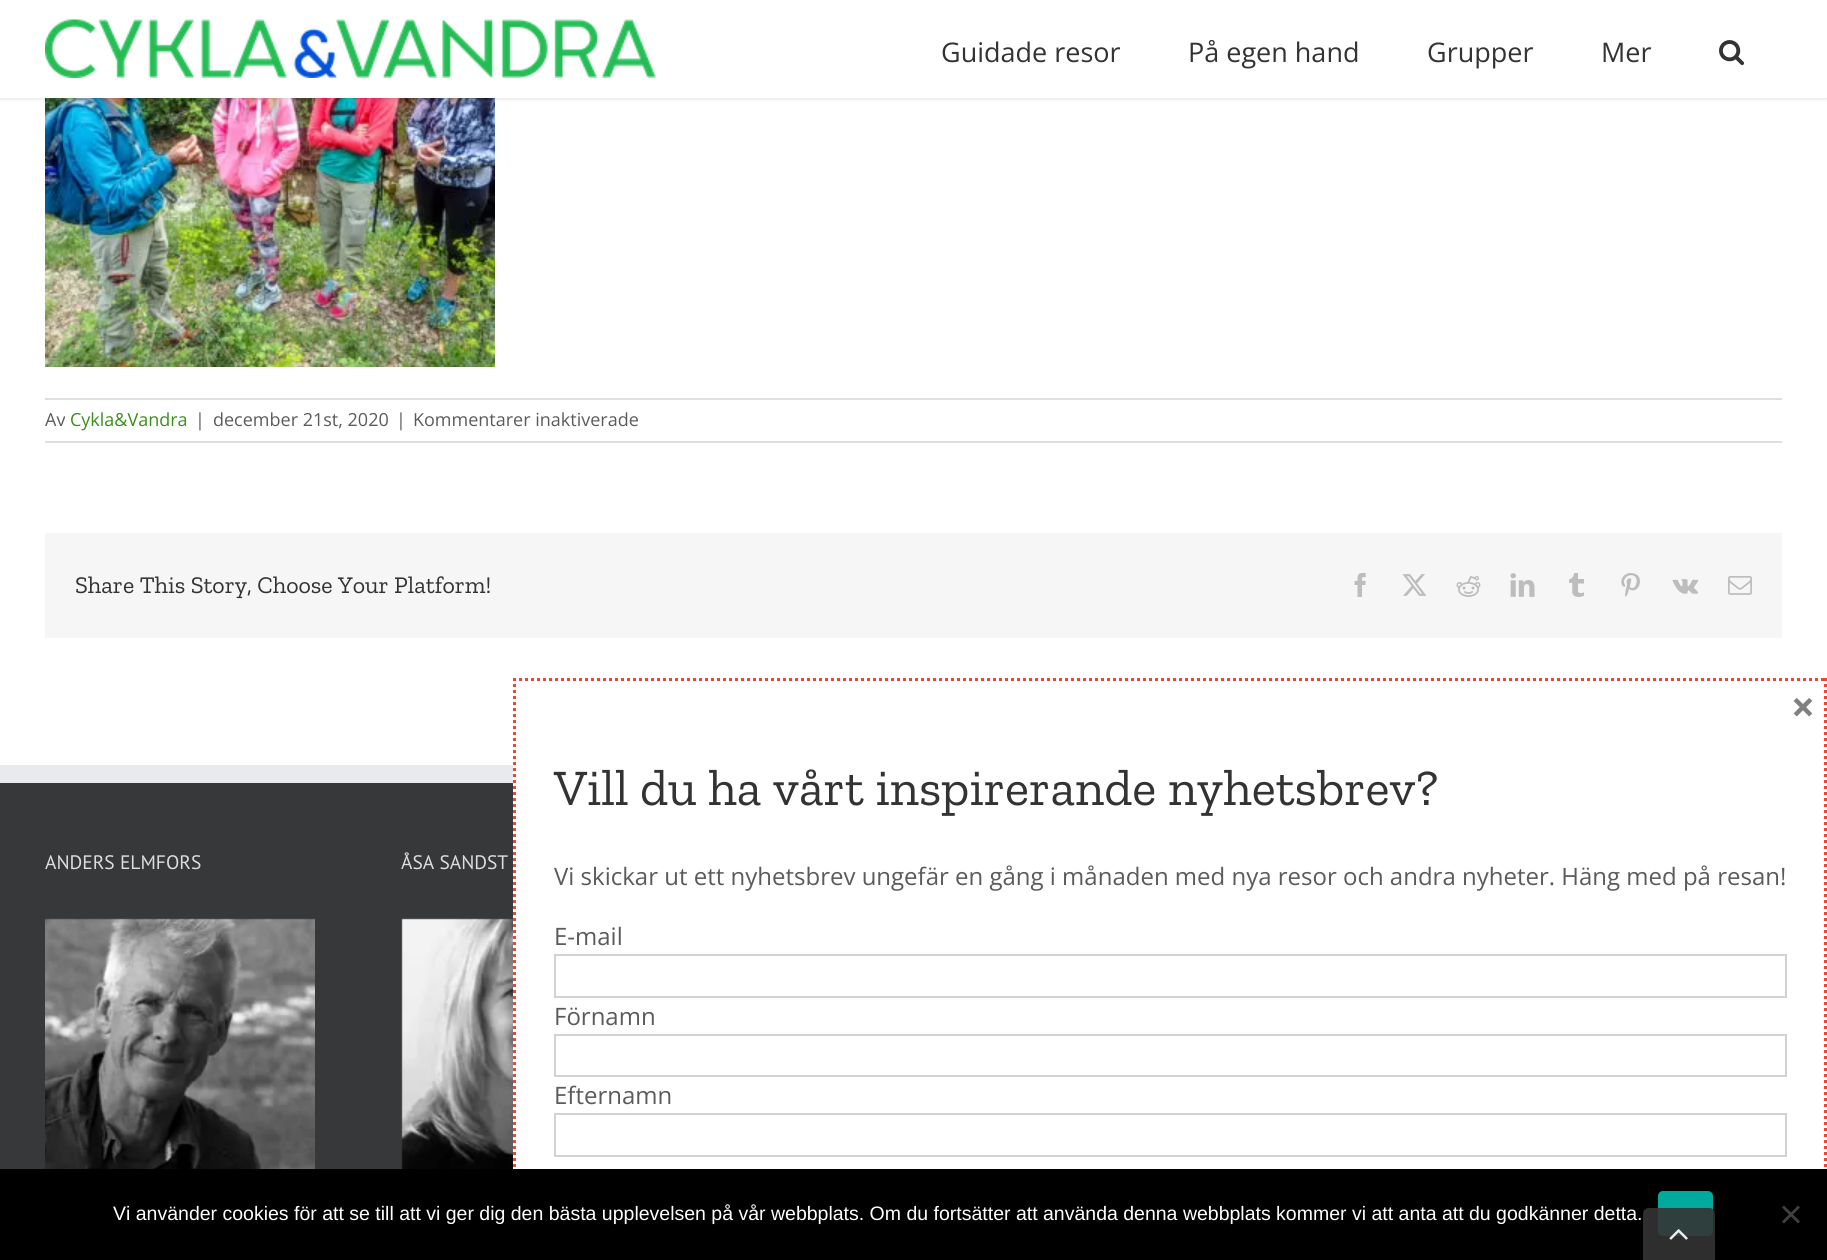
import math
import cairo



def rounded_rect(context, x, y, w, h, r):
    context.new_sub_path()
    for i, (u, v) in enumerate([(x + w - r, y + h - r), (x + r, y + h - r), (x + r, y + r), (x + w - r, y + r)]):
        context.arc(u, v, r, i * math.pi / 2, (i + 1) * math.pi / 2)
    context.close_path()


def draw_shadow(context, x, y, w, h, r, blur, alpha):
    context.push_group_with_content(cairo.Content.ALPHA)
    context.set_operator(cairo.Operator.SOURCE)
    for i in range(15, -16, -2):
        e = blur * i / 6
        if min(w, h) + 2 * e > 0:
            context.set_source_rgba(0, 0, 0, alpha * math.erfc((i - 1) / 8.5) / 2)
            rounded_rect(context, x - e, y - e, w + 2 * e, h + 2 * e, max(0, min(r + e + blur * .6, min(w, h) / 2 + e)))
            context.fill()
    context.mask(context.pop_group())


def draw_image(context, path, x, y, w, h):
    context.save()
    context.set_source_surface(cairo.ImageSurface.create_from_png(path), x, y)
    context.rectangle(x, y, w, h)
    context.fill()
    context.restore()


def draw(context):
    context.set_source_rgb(1, 1, 1)
    context.paint()
    draw_image(context, "images/3.png", 45, 98, 450, 269)
    context.set_source_rgb(0, 0, 0)
    draw_shadow(context, 0, 2, 1827, 97, 0, 2, 0.12)
    context.set_source_rgb(1, 1, 1)
    context.rectangle(0, 0, 1827, 98)
    context.fill()
    draw_image(context, "images/1.png", 45, 19, 611, 59)
    draw_image(context, "images/2.png", 1719, 40, 26, 26)
    context.set_source_rgb(224 / 255, 222 / 255, 222 / 255)
    context.rectangle(45, 398, 1737, 2)
    context.fill()
    context.rectangle(45, 441, 1737, 2)
    context.fill()
    context.set_source_rgb(246 / 255, 246 / 255, 246 / 255)
    context.rectangle(45, 533, 1737, 105)
    context.fill()
    draw_image(context, "images/4.png", 1354, 573, 12, 24)
    draw_image(context, "images/5.png", 1402, 574, 25, 22)
    draw_image(context, "images/6.png", 1456, 576, 25, 21)
    draw_image(context, "images/7.png", 1510, 573, 25, 24)
    draw_image(context, "images/8.png", 1569, 573, 15, 24)
    draw_image(context, "images/9.png", 1621, 573, 19, 24)
    draw_image(context, "images/10.png", 1672, 579, 27, 15)
    draw_image(context, "images/11.png", 1728, 576, 24, 19)
    context.set_source_rgb(54 / 255, 56 / 255, 57 / 255)
    context.rectangle(0, 783, 513, 386)
    context.fill()
    context.set_source_rgb(233 / 255, 234 / 255, 238 / 255)
    context.rectangle(0, 765, 513, 18)
    context.fill()
    draw_image(context, "images/12.png", 45, 918, 270, 251)
    draw_image(context, "images/13.png", 401, 918, 112, 251)
    context.new_path()
    context.move_to(513, 679.5)
    context.line_to(1827, 679.5)
    context.set_source_rgb(244 / 255, 67 / 255, 54 / 255)
    context.set_line_width(3)
    context.set_dash([3, 3])
    context.stroke()
    context.new_path()
    context.move_to(1825.5, 678)
    context.line_to(1825.5, 1260)
    context.stroke()
    context.new_path()
    context.move_to(514.5, 678)
    context.line_to(514.5, 1260)
    context.stroke()
    context.rectangle(555, 955, 1231, 42)
    context.set_source_rgb(210 / 255, 210 / 255, 210 / 255)
    context.set_line_width(2)
    context.set_dash([])
    context.stroke()
    context.rectangle(555, 1035, 1231, 41)
    context.stroke()
    context.rectangle(555, 1114, 1231, 42)
    context.stroke()
    context.set_source_rgb(0, 0, 0)
    context.rectangle(0, 1169, 1827, 91)
    context.fill()
    context.set_source_rgb(0, 169 / 255, 157 / 255)
    rounded_rect(context, 1658, 1191, 55, 45, 5)
    context.fill()
    context.set_source_rgb(64 / 255, 64 / 255, 64 / 255)
    context.new_path()
    context.move_to(1798, 1205.5)
    context.line_to(1800, 1207.5)
    context.line_to(1784, 1223.5)
    context.line_to(1782, 1221.5)
    context.close_path()
    context.fill()
    context.new_path()
    context.move_to(1782, 1207.5)
    context.line_to(1784, 1205.5)
    context.line_to(1800, 1221.5)
    context.line_to(1798, 1223.5)
    context.close_path()
    context.fill()
    context.set_source_rgba(51 / 255, 51 / 255, 51 / 255, 0.9)
    context.new_path()
    context.move_to(1649, 1208)
    context.line_to(1709, 1208)
    context.curve_to(1712.5, 1208, 1715, 1210.5, 1715, 1214)
    context.line_to(1715, 1260)
    context.line_to(1643, 1260)
    context.line_to(1643, 1214)
    context.curve_to(1643, 1210.5, 1645.5, 1208, 1649, 1208)
    context.close_path()
    context.fill()
    draw_image(context, "images/14.png", 1669, 1229, 19, 11)
    context.select_font_face("Open Sans")
    context.set_font_size(27)
    context.set_source_rgb(51 / 255, 51 / 255, 51 / 255)
    context.move_to(941, 62)
    context.show_text("Guidade resor")
    context.move_to(1188, 62)
    context.show_text("På egen hand")
    context.move_to(1427, 62)
    context.show_text("Grupper")
    context.move_to(1601, 62)
    context.show_text("Mer")
    context.set_font_size(18)
    context.set_source_rgb(91 / 255, 91 / 255, 91 / 255)
    context.move_to(45, 426)
    context.show_text("Av")
    context.set_source_rgb(57 / 255, 143 / 255, 26 / 255)
    context.move_to(70, 426)
    context.show_text("Cykla&Vandra")
    context.set_source_rgb(91 / 255, 91 / 255, 91 / 255)
    context.move_to(195, 426)
    context.show_text("|")
    context.move_to(213, 426)
    context.show_text("december 21st, 2020")
    context.move_to(396, 426)
    context.show_text("|")
    context.move_to(413, 426)
    context.show_text("Kommentarer inaktiverade")
    context.select_font_face("Zilla Slab")
    context.set_font_size(24)
    context.set_source_rgb(51 / 255, 51 / 255, 51 / 255)
    context.move_to(75, 593)
    context.show_text("Share This Story, Choose Your Platform!")
    context.select_font_face("PT Sans")
    context.set_font_size(19.5)
    context.set_source_rgb(221 / 255, 221 / 255, 221 / 255)
    context.move_to(45, 869)
    context.show_text("ANDERS ELMFORS")
    context.move_to(401, 869)
    context.show_text("ÅSA SANDST")
    context.select_font_face("Open Sans", cairo.FontSlant.NORMAL, cairo.FontWeight.BOLD)
    context.set_font_size(42)
    context.set_source_rgb(128 / 255, 128 / 255, 128 / 255)
    context.move_to(1791, 722)
    context.show_text("×")
    context.select_font_face("Zilla Slab")
    context.set_font_size(51)
    context.set_source_rgb(51 / 255, 51 / 255, 51 / 255)
    context.move_to(554, 805)
    context.show_text("Vill du ha vårt inspirerande nyhetsbrev?")
    context.select_font_face("Open Sans")
    context.set_font_size(24)
    context.set_source_rgb(91 / 255, 91 / 255, 91 / 255)
    context.move_to(554, 885)
    context.show_text("Vi skickar ut ett nyhetsbrev ungefär en gång i månaden med nya resor och andra nyheter. Häng med på resan!")
    context.move_to(554, 945)
    context.show_text("E-mail")
    context.move_to(554, 1025)
    context.show_text("Förnamn")
    context.move_to(554, 1104)
    context.show_text("Efternamn")
    context.select_font_face("Liberation Sans")
    context.set_font_size(19.5)
    context.set_source_rgb(1, 1, 1)
    context.move_to(113, 1220)
    context.show_text("Vi använder cookies för att se till att vi ger dig den bästa upplevelsen på vår webbplats. Om du fortsätter att använda denna webbplats kommer vi att anta att du godkänner detta.")


surface = cairo.ImageSurface(cairo.Format.RGB24, 1827, 1260)
context = cairo.Context(surface)
options = cairo.FontOptions()
options.set_hint_metrics(cairo.HintMetrics.OFF)
options.set_hint_style(cairo.HintStyle.NONE)
context.set_font_options(options)
context.set_miter_limit(4)
draw(context)
surface.write_to_png("out.png")
